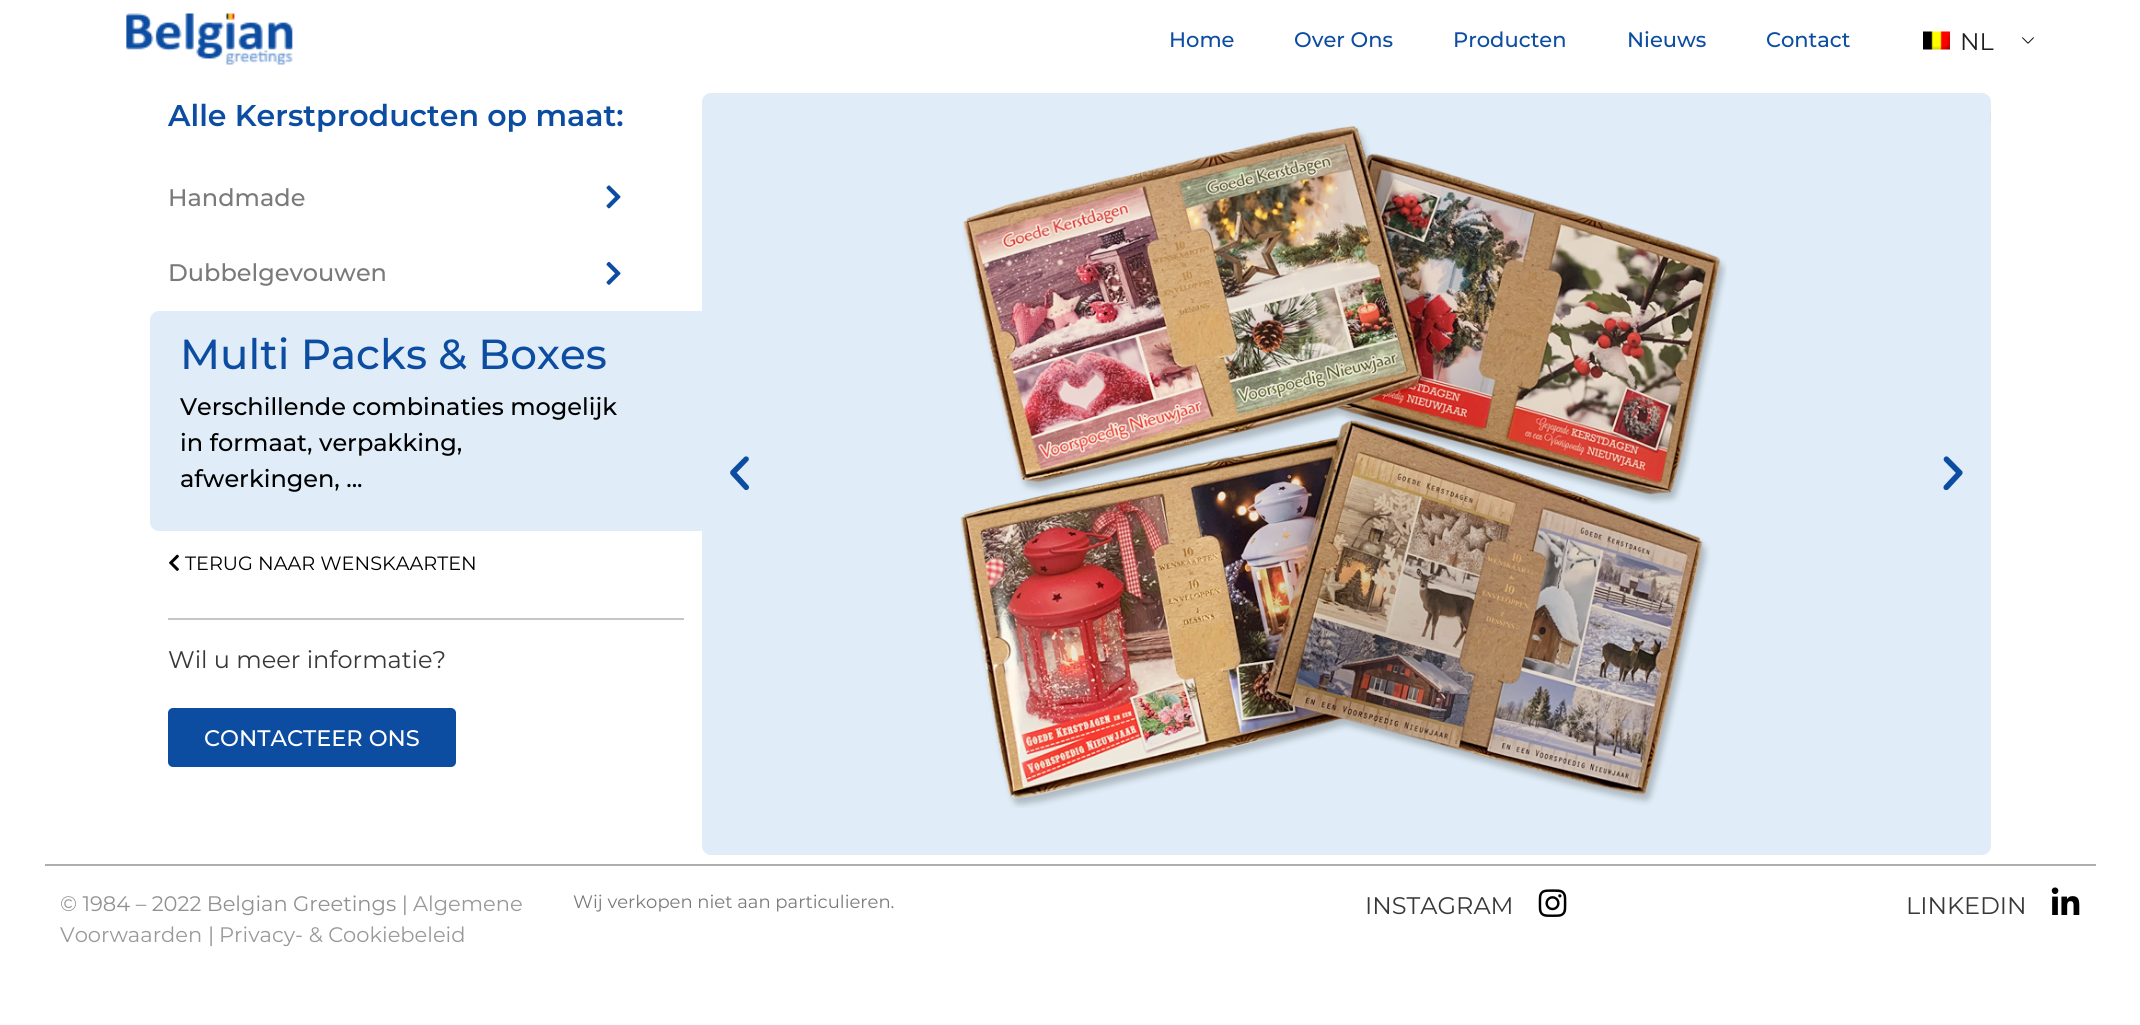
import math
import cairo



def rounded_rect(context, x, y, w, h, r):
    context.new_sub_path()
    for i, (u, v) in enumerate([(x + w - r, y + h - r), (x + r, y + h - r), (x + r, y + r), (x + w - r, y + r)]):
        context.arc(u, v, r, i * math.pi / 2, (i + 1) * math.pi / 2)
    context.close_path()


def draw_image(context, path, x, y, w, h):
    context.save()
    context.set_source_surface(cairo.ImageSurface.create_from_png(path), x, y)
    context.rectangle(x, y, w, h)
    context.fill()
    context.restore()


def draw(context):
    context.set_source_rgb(1, 1, 1)
    context.paint()
    draw_image(context, "images/1.png", 126, 13, 167, 52)
    draw_image(context, "images/2.png", 2022, 37, 12, 7)
    draw_image(context, "images/3.png", 1923, 31, 27, 19)
    draw_image(context, "images/4.png", 606, 185, 15, 24)
    draw_image(context, "images/5.png", 606, 261, 15, 24)
    context.set_source_rgb(224 / 255, 237 / 255, 248 / 255)
    context.new_path()
    context.move_to(159, 311)
    context.line_to(702, 311)
    context.line_to(702, 531)
    context.line_to(159, 531)
    context.curve_to(154, 531, 150, 527, 150, 522)
    context.line_to(150, 320)
    context.curve_to(150, 315, 154, 311, 159, 311)
    context.close_path()
    context.fill()
    draw_image(context, "images/6.png", 169, 554, 10, 17)
    context.set_source_rgb(201 / 255, 197 / 255, 197 / 255)
    context.rectangle(168, 618, 516, 2)
    context.fill()
    context.set_source_rgb(12 / 255, 77 / 255, 162 / 255)
    rounded_rect(context, 168, 708, 288, 59, 5)
    context.fill()
    context.set_source_rgb(224 / 255, 237 / 255, 248 / 255)
    rounded_rect(context, 702, 93, 1289, 762, 9)
    context.fill()
    draw_image(context, "images/7.png", 730, 456, 20, 35)
    draw_image(context, "images/8.png", 1990, 112, 1, 11)
    draw_image(context, "images/9.png", 960, 126, 767, 682)
    draw_image(context, "images/10.png", 1943, 456, 20, 35)
    context.set_source_rgb(174 / 255, 174 / 255, 174 / 255)
    context.rectangle(45, 864, 2051, 2)
    context.fill()
    draw_image(context, "images/11.png", 1538, 889, 29, 28)
    draw_image(context, "images/12.png", 2051, 887, 29, 28)
    context.select_font_face("Montserrat Medium")
    context.set_font_size(21)
    context.set_source_rgb(12 / 255, 77 / 255, 162 / 255)
    context.move_to(1169, 47)
    context.show_text("Home")
    context.move_to(1294, 47)
    context.show_text("Over Ons")
    context.move_to(1453, 47)
    context.show_text("Producten")
    context.move_to(1627, 47)
    context.show_text("Nieuws")
    context.move_to(1766, 47)
    context.show_text("Contact")
    context.select_font_face("Montserrat")
    context.set_font_size(24)
    context.set_source_rgb(30 / 255, 30 / 255, 30 / 255)
    context.move_to(1960, 50)
    context.show_text("NL")
    context.select_font_face("Montserrat SemiBold")
    context.set_font_size(30)
    context.set_source_rgb(12 / 255, 77 / 255, 162 / 255)
    context.move_to(168, 126)
    context.show_text("Alle Kerstproducten op maat:")
    context.select_font_face("Montserrat Medium")
    context.set_font_size(24)
    context.set_source_rgb(122 / 255, 122 / 255, 122 / 255)
    context.move_to(168, 206)
    context.show_text("Handmade")
    context.move_to(168, 281)
    context.show_text("Dubbelgevouwen")
    context.set_font_size(42)
    context.set_source_rgb(12 / 255, 77 / 255, 162 / 255)
    context.move_to(180, 369)
    context.show_text("Multi Packs & Boxes")
    context.set_font_size(24)
    context.set_source_rgb(0, 0, 0)
    context.move_to(180, 415)
    context.show_text("Verschillende combinaties mogelijk")
    context.move_to(180, 451)
    context.show_text("in formaat, verpakking,")
    context.move_to(180, 487)
    context.show_text("afwerkingen, ...")
    context.select_font_face("Montserrat")
    context.set_font_size(19.25)
    context.move_to(185, 570)
    context.show_text("TERUG NAAR WENSKAARTEN")
    context.set_font_size(24)
    context.set_source_rgb(56 / 255, 56 / 255, 56 / 255)
    context.move_to(168, 668)
    context.show_text("Wil u meer informatie?")
    context.select_font_face("Montserrat Medium")
    context.set_font_size(22.5)
    context.set_source_rgb(1, 1, 1)
    context.move_to(204, 746)
    context.show_text("CONTACTEER ONS")
    context.select_font_face("Montserrat")
    context.set_font_size(21)
    context.set_source_rgb(146 / 255, 145 / 255, 145 / 255)
    context.move_to(60, 911)
    context.show_text("© 1984 – 2022 Belgian Greetings |")
    context.set_source_rgb(153 / 255, 153 / 255, 152 / 255)
    context.move_to(413, 911)
    context.show_text("Algemene")
    context.move_to(60, 942)
    context.show_text("Voorwaarden")
    context.set_source_rgb(146 / 255, 145 / 255, 145 / 255)
    context.move_to(208, 942)
    context.show_text("|")
    context.set_source_rgb(153 / 255, 153 / 255, 152 / 255)
    context.move_to(219, 942)
    context.show_text("Privacy- & Cookiebeleid")
    context.set_font_size(18)
    context.set_source_rgb(122 / 255, 122 / 255, 122 / 255)
    context.move_to(573, 908)
    context.show_text("Wij verkopen niet aan particulieren.")
    context.set_font_size(24)
    context.set_source_rgb(56 / 255, 56 / 255, 56 / 255)
    context.move_to(1365, 914)
    context.show_text("INSTAGRAM")
    context.move_to(1906, 914)
    context.show_text("LINKEDIN")


surface = cairo.ImageSurface(cairo.Format.RGB24, 2140, 1025)
context = cairo.Context(surface)
options = cairo.FontOptions()
options.set_hint_metrics(cairo.HintMetrics.OFF)
options.set_hint_style(cairo.HintStyle.NONE)
context.set_font_options(options)
context.set_miter_limit(4)
draw(context)
surface.write_to_png("out.png")
